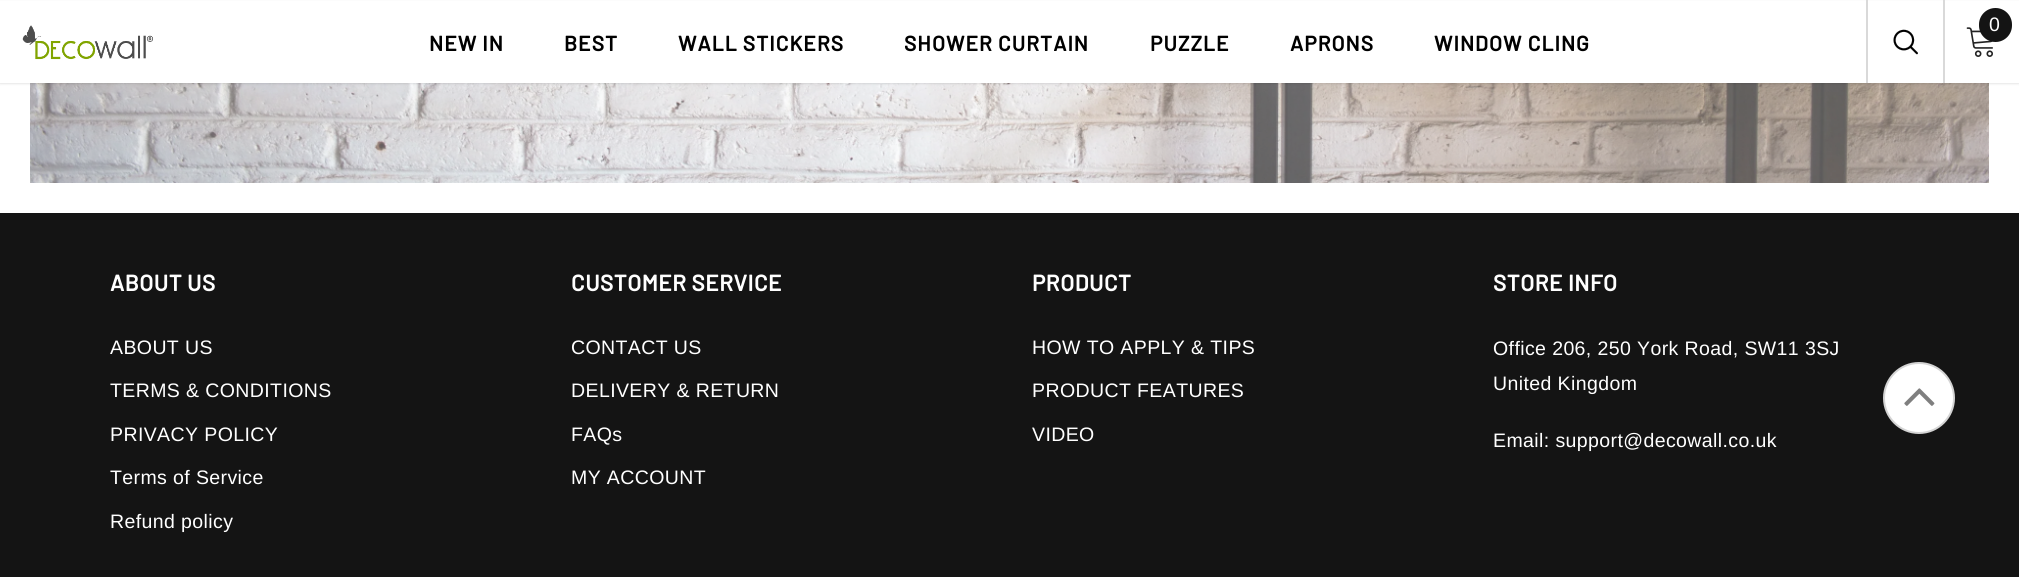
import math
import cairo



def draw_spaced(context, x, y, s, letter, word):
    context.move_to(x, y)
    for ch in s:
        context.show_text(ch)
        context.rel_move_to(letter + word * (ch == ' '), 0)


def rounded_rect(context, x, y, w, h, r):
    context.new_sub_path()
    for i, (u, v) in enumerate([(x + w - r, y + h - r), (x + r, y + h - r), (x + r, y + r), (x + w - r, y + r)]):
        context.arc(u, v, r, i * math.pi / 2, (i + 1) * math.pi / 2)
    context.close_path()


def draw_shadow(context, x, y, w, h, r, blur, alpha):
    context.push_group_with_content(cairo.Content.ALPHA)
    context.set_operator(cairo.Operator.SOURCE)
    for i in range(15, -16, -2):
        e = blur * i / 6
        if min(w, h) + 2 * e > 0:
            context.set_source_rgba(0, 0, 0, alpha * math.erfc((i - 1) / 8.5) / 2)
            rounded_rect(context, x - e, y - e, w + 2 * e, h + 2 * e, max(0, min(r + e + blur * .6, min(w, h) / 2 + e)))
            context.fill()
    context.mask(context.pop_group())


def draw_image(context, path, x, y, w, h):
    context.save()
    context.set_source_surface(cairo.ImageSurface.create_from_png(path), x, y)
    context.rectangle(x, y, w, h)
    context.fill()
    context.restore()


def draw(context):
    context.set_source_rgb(1, 1, 1)
    context.paint()
    draw_image(context, "images/4.png", 30, 83, 1959, 100)
    context.set_source_rgb(0, 0, 0)
    draw_shadow(context, 0, 2, 2019, 82, 0, 1, 0.1)
    context.set_source_rgb(1, 1, 1)
    context.rectangle(0, 1, 2019, 82)
    context.fill()
    draw_image(context, "images/1.png", 1966, 27, 27, 30)
    context.set_source_rgb(20 / 255, 20 / 255, 20 / 255)
    rounded_rect(context, 1979, 8, 33, 34, 16.5)
    context.fill()
    draw_image(context, "images/2.png", 22, 25, 131, 35)
    context.set_source_rgb(217 / 255, 217 / 255, 217 / 255)
    context.rectangle(1866, 0, 2, 83)
    context.fill()
    draw_image(context, "images/3.png", 1893, 29, 25, 26)
    context.rectangle(1943, 0, 2, 83)
    context.fill()
    context.set_source_rgb(20 / 255, 20 / 255, 20 / 255)
    context.rectangle(0, 213, 2019, 364)
    context.fill()
    context.set_source_rgb(1, 1, 1)
    context.arc(1919, 398, 35, 0, 2 * math.pi)
    context.fill_preserve()
    context.set_source_rgb(212 / 255, 212 / 255, 212 / 255)
    context.stroke()
    draw_image(context, "images/5.png", 1904, 388, 31, 18)
    context.select_font_face("Arimo")
    context.set_font_size(19.5)
    context.set_source_rgb(1, 1, 1)
    draw_spaced(context, 1989, 31, "0", 0.4, 0)
    context.select_font_face("Barlow", cairo.FontSlant.NORMAL, cairo.FontWeight.BOLD)
    context.set_font_size(21)
    context.set_source_rgb(0, 0, 0)
    draw_spaced(context, 429, 51, "NEW IN", 1, 0)
    draw_spaced(context, 564, 51, "BEST", 1, 0)
    draw_spaced(context, 678, 51, "WALL STICKERS", 1, 0)
    draw_spaced(context, 904, 51, "SHOWER CURTAIN", 1, 0)
    draw_spaced(context, 1150, 51, "PUZZLE", 1, 0)
    draw_spaced(context, 1290, 51, "APRONS", 1, 0)
    draw_spaced(context, 1434, 51, "WINDOW CLING", 1, 0)
    context.set_font_size(22.5)
    context.set_source_rgb(1, 1, 1)
    draw_spaced(context, 110, 291, "ABOUT US", 0.5, 0)
    context.select_font_face("Arimo")
    context.set_font_size(19.5)
    draw_spaced(context, 110, 354, "ABOUT US", 0.4, 0)
    draw_spaced(context, 110, 397, "TERMS & CONDITIONS", 0.4, 0)
    draw_spaced(context, 110, 441, "PRIVACY POLICY", 0.4, 0)
    draw_spaced(context, 110, 484, "Terms of Service", 0.4, 0)
    draw_spaced(context, 110, 528, "Refund policy", 0.4, 0)
    context.select_font_face("Barlow", cairo.FontSlant.NORMAL, cairo.FontWeight.BOLD)
    context.set_font_size(22.5)
    draw_spaced(context, 571, 291, "CUSTOMER SERVICE", 0.5, 0)
    context.select_font_face("Arimo")
    context.set_font_size(19.5)
    draw_spaced(context, 571, 354, "CONTACT US", 0.4, 0)
    draw_spaced(context, 571, 397, "DELIVERY & RETURN", 0.4, 0)
    draw_spaced(context, 571, 441, "FAQs", 0.4, 0)
    draw_spaced(context, 571, 484, "MY ACCOUNT", 0.4, 0)
    context.select_font_face("Barlow", cairo.FontSlant.NORMAL, cairo.FontWeight.BOLD)
    context.set_font_size(22.5)
    draw_spaced(context, 1032, 291, "PRODUCT", 0.5, 0)
    context.select_font_face("Arimo")
    context.set_font_size(19.5)
    draw_spaced(context, 1032, 354, "HOW TO APPLY & TIPS", 0.4, 0)
    draw_spaced(context, 1032, 397, "PRODUCT FEATURES", 0.4, 0)
    draw_spaced(context, 1032, 441, "VIDEO", 0.4, 0)
    context.select_font_face("Barlow", cairo.FontSlant.NORMAL, cairo.FontWeight.BOLD)
    context.set_font_size(22.5)
    draw_spaced(context, 1493, 291, "STORE INFO", 0.5, 0)
    context.select_font_face("Arimo")
    context.set_font_size(19.5)
    draw_spaced(context, 1493, 355, "Office 206, 250 York Road, SW11 3SJ", 0.4, 0)
    draw_spaced(context, 1493, 390, "United Kingdom", 0.4, 0)
    draw_spaced(context, 1493, 447, "Email: support@decowall.co.uk", 0.4, 0)


surface = cairo.ImageSurface(cairo.Format.RGB24, 2019, 577)
context = cairo.Context(surface)
options = cairo.FontOptions()
options.set_hint_metrics(cairo.HintMetrics.OFF)
options.set_hint_style(cairo.HintStyle.NONE)
context.set_font_options(options)
context.set_miter_limit(4)
draw(context)
surface.write_to_png("out.png")
